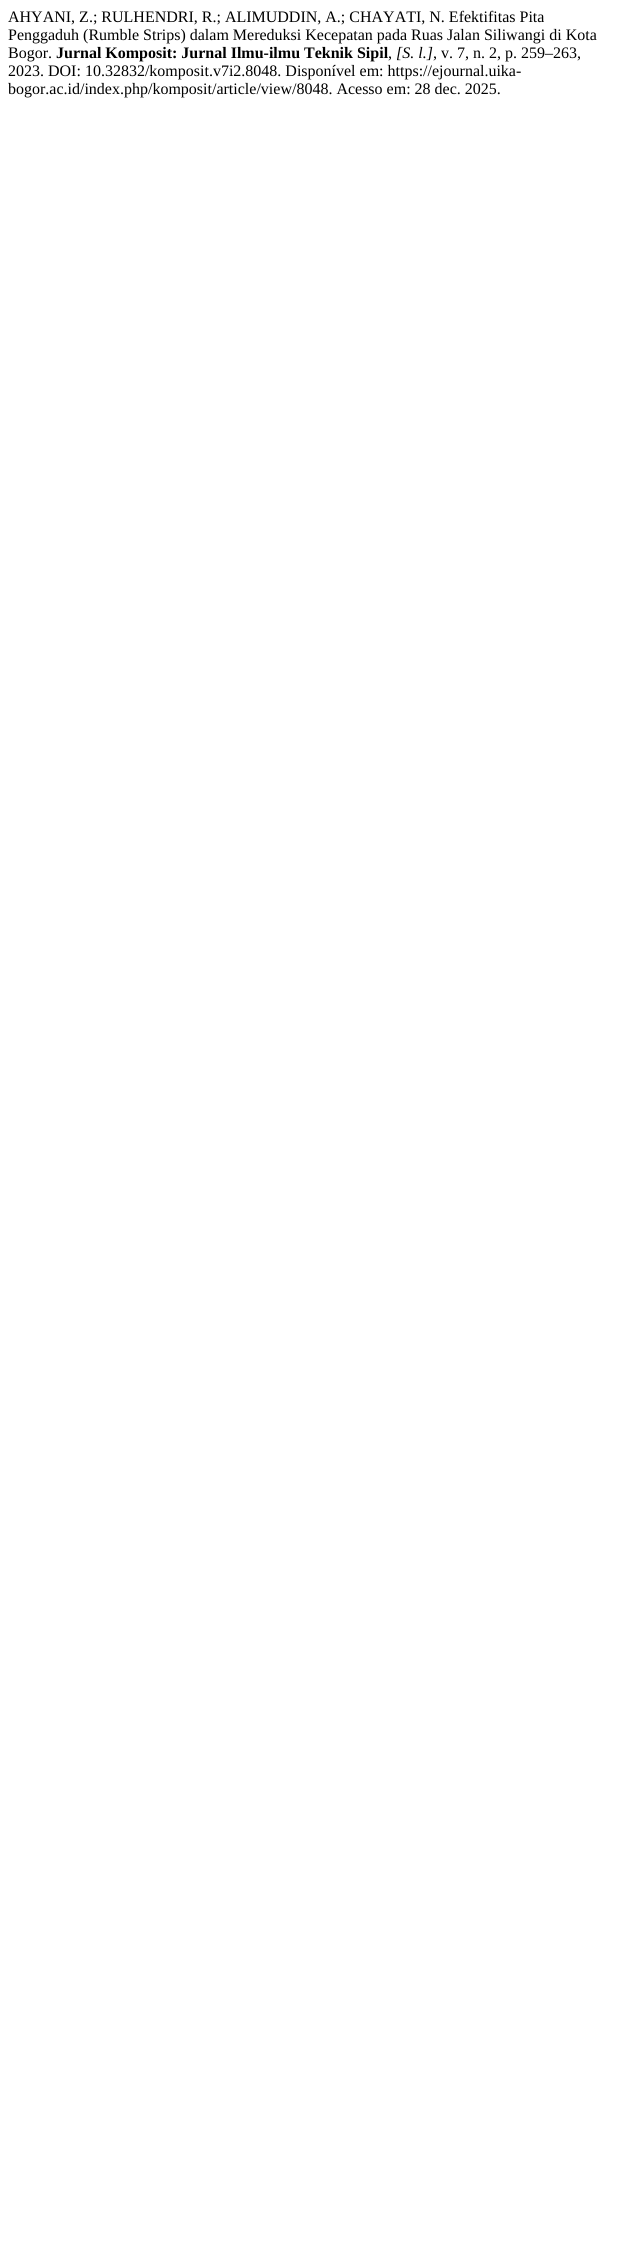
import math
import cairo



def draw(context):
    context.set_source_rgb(1, 1, 1)
    context.paint()
    context.select_font_face("Liberation Serif")
    context.set_font_size(16)
    context.set_source_rgb(0, 0, 0)
    context.move_to(8, 22)
    context.show_text("AHYANI, Z.; RULHENDRI, R.; ALIMUDDIN, A.; CHAYATI, N. Efektifitas Pita")
    context.move_to(8, 40)
    context.show_text("Penggaduh (Rumble Strips) dalam Mereduksi Kecepatan pada Ruas Jalan Siliwangi di Kota")
    context.move_to(8, 58)
    context.show_text("Bogor.")
    context.select_font_face("Liberation Serif", cairo.FontSlant.NORMAL, cairo.FontWeight.BOLD)
    context.move_to(56, 58)
    context.show_text("Jurnal Komposit: Jurnal Ilmu-ilmu Teknik Sipil")
    context.select_font_face("Liberation Serif")
    context.move_to(388, 58)
    context.show_text(",")
    context.select_font_face("Liberation Serif", cairo.FontSlant.ITALIC)
    context.move_to(396, 58)
    context.show_text("[S. l.]")
    context.select_font_face("Liberation Serif")
    context.move_to(433, 58)
    context.show_text(", v. 7, n. 2, p. 259–263,")
    context.move_to(8, 76)
    context.show_text("2023. DOI: 10.32832/komposit.v7i2.8048. Disponível em: https://ejournal.uika-")
    context.move_to(8, 94)
    context.show_text("bogor.ac.id/index.php/komposit/article/view/8048. Acesso em: 28 dec. 2025.")


surface = cairo.ImageSurface(cairo.Format.RGB24, 617, 2247)
context = cairo.Context(surface)
options = cairo.FontOptions()
options.set_hint_metrics(cairo.HintMetrics.OFF)
options.set_hint_style(cairo.HintStyle.NONE)
context.set_font_options(options)
context.set_miter_limit(4)
draw(context)
surface.write_to_png("out.png")
